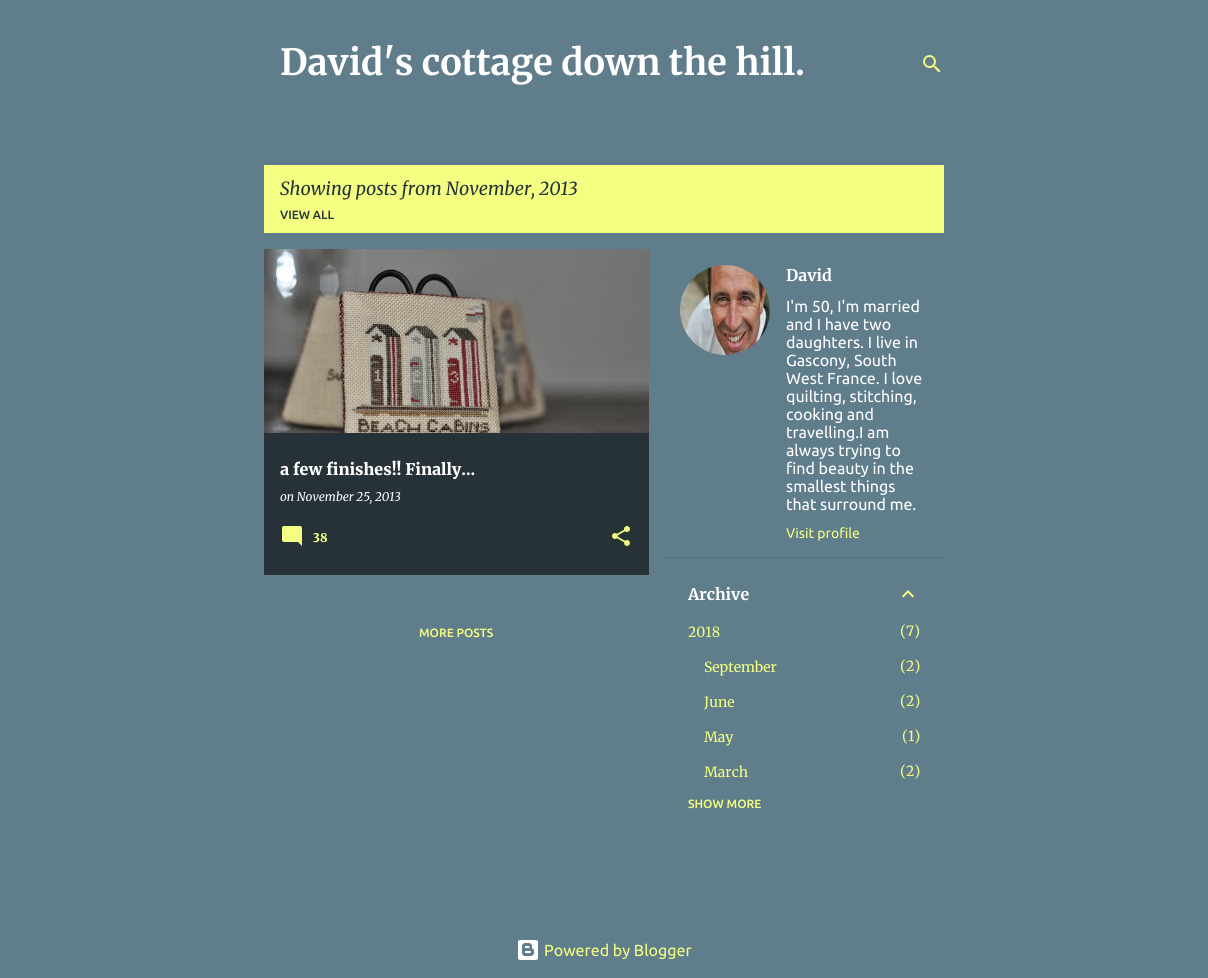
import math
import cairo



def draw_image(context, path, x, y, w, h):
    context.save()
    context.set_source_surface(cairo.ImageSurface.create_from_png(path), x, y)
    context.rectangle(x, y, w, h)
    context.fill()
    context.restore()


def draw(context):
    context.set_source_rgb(96 / 255, 125 / 255, 139 / 255)
    context.paint()
    draw_image(context, "images/1.png", 923, 55, 18, 18)
    context.set_source_rgb(244 / 255, 1, 129 / 255)
    context.rectangle(264, 165, 680, 68)
    context.fill()
    context.set_source_rgb(38 / 255, 50 / 255, 56 / 255)
    context.rectangle(264, 433, 385, 142)
    context.fill()
    draw_image(context, "images/2.png", 264, 249, 385, 184)
    draw_image(context, "images/3.png", 282, 526, 20, 20)
    draw_image(context, "images/4.png", 612, 526, 18, 20)
    draw_image(context, "images/5.png", 680, 265, 90, 90)
    context.set_source_rgb(84 / 255, 110 / 255, 122 / 255)
    context.rectangle(664, 557, 280, 1)
    context.fill()
    draw_image(context, "images/6.png", 902, 590, 12, 8)
    draw_image(context, "images/7.png", 518, 940, 20, 20)
    context.select_font_face("Merriweather", cairo.FontSlant.NORMAL, cairo.FontWeight.BOLD)
    context.set_font_size(36)
    context.set_source_rgb(1, 1, 1)
    context.move_to(280, 75)
    context.show_text("David's cottage down the hill.")
    context.select_font_face("Merriweather", cairo.FontSlant.ITALIC)
    context.set_font_size(18)
    context.set_source_rgb(38 / 255, 50 / 255, 56 / 255)
    context.move_to(280, 195)
    context.show_text("Showing posts from November, 2013")
    context.select_font_face("Ubuntu Medium")
    context.set_font_size(12)
    context.move_to(280, 219)
    context.show_text("VIEW ALL")
    context.select_font_face("Merriweather Black")
    context.set_font_size(16)
    context.set_source_rgb(1, 1, 1)
    context.move_to(280, 475)
    context.show_text("a few finishes!! Finally...")
    context.select_font_face("Merriweather", cairo.FontSlant.ITALIC)
    context.set_font_size(12)
    context.move_to(280, 501)
    context.show_text("on November 25, 2013")
    context.select_font_face("Merriweather Black")
    context.set_source_rgb(244 / 255, 1, 129 / 255)
    context.move_to(313, 542)
    context.show_text("38")
    context.select_font_face("Ubuntu Medium")
    context.move_to(419, 637)
    context.show_text("MORE POSTS")
    context.select_font_face("Merriweather", cairo.FontSlant.NORMAL, cairo.FontWeight.BOLD)
    context.set_font_size(16)
    context.set_source_rgb(1, 1, 1)
    context.move_to(786, 281)
    context.show_text("David")
    context.select_font_face("Ubuntu")
    context.move_to(786, 312)
    context.show_text("I'm 50, I'm married")
    context.move_to(786, 330)
    context.show_text("and I have two")
    context.move_to(786, 348)
    context.show_text("daughters. I live in")
    context.move_to(786, 366)
    context.show_text("Gascony, South")
    context.move_to(786, 384)
    context.show_text("West France. I love")
    context.move_to(786, 402)
    context.show_text("quilting, stitching,")
    context.move_to(786, 420)
    context.show_text("cooking and")
    context.move_to(786, 438)
    context.show_text("travelling.I am")
    context.move_to(786, 456)
    context.show_text("always trying to")
    context.move_to(786, 474)
    context.show_text("find beauty in the")
    context.move_to(786, 492)
    context.show_text("smallest things")
    context.move_to(786, 510)
    context.show_text("that surround me.")
    context.set_font_size(14)
    context.set_source_rgb(244 / 255, 1, 129 / 255)
    context.move_to(786, 538)
    context.show_text("Visit profile")
    context.select_font_face("Merriweather", cairo.FontSlant.NORMAL, cairo.FontWeight.BOLD)
    context.set_font_size(16)
    context.set_source_rgb(1, 1, 1)
    context.move_to(688, 600)
    context.show_text("Archive")
    context.select_font_face("Merriweather")
    context.set_font_size(14)
    context.set_source_rgb(244 / 255, 1, 129 / 255)
    context.move_to(688, 637)
    context.show_text("2018")
    context.move_to(900, 636)
    context.show_text("(7)")
    context.move_to(704, 672)
    context.show_text("September")
    context.move_to(900, 671)
    context.show_text("(2)")
    context.move_to(704, 707)
    context.show_text("June")
    context.move_to(900, 706)
    context.show_text("(2)")
    context.move_to(704, 742)
    context.show_text("May")
    context.move_to(902, 741)
    context.show_text("(1)")
    context.move_to(704, 777)
    context.show_text("March")
    context.move_to(900, 776)
    context.show_text("(2)")
    context.select_font_face("Ubuntu Medium")
    context.set_font_size(12)
    context.move_to(688, 808)
    context.show_text("SHOW MORE")
    context.select_font_face("Ubuntu")
    context.set_font_size(16)
    context.move_to(544, 956)
    context.show_text("Powered by Blogger")


surface = cairo.ImageSurface(cairo.Format.RGB24, 1208, 978)
context = cairo.Context(surface)
options = cairo.FontOptions()
options.set_hint_metrics(cairo.HintMetrics.OFF)
options.set_hint_style(cairo.HintStyle.NONE)
context.set_font_options(options)
context.set_miter_limit(4)
draw(context)
surface.write_to_png("out.png")
